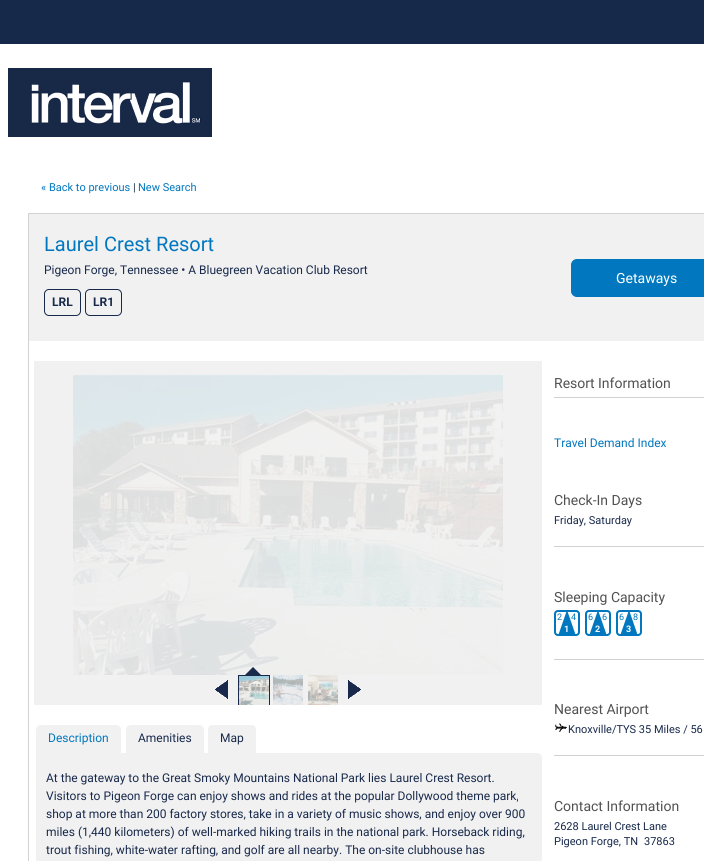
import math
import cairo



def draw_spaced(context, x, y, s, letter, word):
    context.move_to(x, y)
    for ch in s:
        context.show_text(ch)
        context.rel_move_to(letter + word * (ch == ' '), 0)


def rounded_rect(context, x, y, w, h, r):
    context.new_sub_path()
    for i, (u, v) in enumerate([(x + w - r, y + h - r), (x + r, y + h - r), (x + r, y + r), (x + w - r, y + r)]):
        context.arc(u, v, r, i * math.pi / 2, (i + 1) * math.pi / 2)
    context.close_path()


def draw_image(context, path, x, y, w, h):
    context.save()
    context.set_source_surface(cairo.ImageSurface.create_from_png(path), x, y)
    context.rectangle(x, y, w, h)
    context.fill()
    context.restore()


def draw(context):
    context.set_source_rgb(1, 1, 1)
    context.paint()
    context.set_source_rgb(22 / 255, 41 / 255, 75 / 255)
    context.rectangle(0, 0, 704, 44)
    context.fill()
    draw_image(context, "images/1.png", 8, 68, 204, 69)
    context.set_source_rgb(210 / 255, 210 / 255, 210 / 255)
    context.rectangle(28, 213, 676, 1)
    context.fill()
    context.rectangle(28, 213, 1, 648)
    context.fill()
    context.set_source_rgb(241 / 255, 241 / 255, 241 / 255)
    context.rectangle(29, 214, 675, 127)
    context.fill()
    rounded_rect(context, 44.5, 289.5, 36, 26, 4.5)
    context.set_source_rgb(24 / 255, 41 / 255, 75 / 255)
    context.set_line_width(1)
    context.stroke()
    rounded_rect(context, 85.5, 289.5, 36, 26, 4.5)
    context.stroke()
    context.set_source_rgb(0, 119 / 255, 190 / 255)
    rounded_rect(context, 571.5, 259.5, 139, 37, 5.5)
    context.fill_preserve()
    context.stroke()
    context.set_source_rgb(241 / 255, 241 / 255, 241 / 255)
    context.rectangle(34, 361, 508, 344)
    context.fill()
    draw_image(context, "images/2.png", 73, 375, 430, 300)
    context.set_source_rgb(24 / 255, 41 / 255, 75 / 255)
    context.new_path()
    context.move_to(261, 675)
    context.line_to(245, 675)
    context.line_to(253, 667)
    context.close_path()
    context.fill()
    draw_image(context, "images/3.png", 215, 680, 13, 19)
    context.save()
    context.rectangle(238, 675, 100, 30)
    context.clip()
    context.rectangle(238.5, 675.5, 31, 31)
    context.stroke()
    context.restore()
    draw_image(context, "images/4.png", 239, 676, 30, 29)
    draw_image(context, "images/5.png", 273, 675, 30, 30)
    draw_image(context, "images/6.png", 308, 675, 30, 30)
    draw_image(context, "images/7.png", 348, 680, 13, 19)
    context.set_source_rgb(241 / 255, 241 / 255, 241 / 255)
    context.new_path()
    context.move_to(41, 725)
    context.line_to(116, 725)
    context.curve_to(119, 725, 121, 727, 121, 730)
    context.line_to(121, 753)
    context.line_to(36, 753)
    context.line_to(36, 730)
    context.curve_to(36, 727, 38, 725, 41, 725)
    context.close_path()
    context.fill()
    context.new_path()
    context.move_to(131, 725)
    context.line_to(199, 725)
    context.curve_to(202, 725, 204, 727, 204, 730)
    context.line_to(204, 753)
    context.line_to(126, 753)
    context.line_to(126, 730)
    context.curve_to(126, 727, 128, 725, 131, 725)
    context.close_path()
    context.fill()
    context.new_path()
    context.move_to(213, 725)
    context.line_to(251, 725)
    context.curve_to(254, 725, 256, 727, 256, 730)
    context.line_to(256, 753)
    context.line_to(208, 753)
    context.line_to(208, 730)
    context.curve_to(208, 727, 210, 725, 213, 725)
    context.close_path()
    context.fill()
    context.new_path()
    context.move_to(36, 753)
    context.line_to(537, 753)
    context.curve_to(540, 753, 542, 755, 542, 758)
    context.line_to(542, 861)
    context.curve_to(542, 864, 540, 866, 537, 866)
    context.line_to(41, 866)
    context.curve_to(38, 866, 36, 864, 36, 861)
    context.close_path()
    context.fill()
    context.set_source_rgb(210 / 255, 210 / 255, 210 / 255)
    context.rectangle(554, 397, 150, 1)
    context.fill()
    context.rectangle(554, 546, 150, 1)
    context.fill()
    context.rectangle(554, 659, 150, 1)
    context.fill()
    draw_image(context, "images/8.png", 554, 610, 26, 26)
    draw_image(context, "images/8.png", 585, 610, 26, 26)
    draw_image(context, "images/8.png", 616, 610, 26, 26)
    context.rectangle(554, 755, 150, 1)
    context.fill()
    draw_image(context, "images/9.png", 555, 723, 12, 9)
    context.select_font_face("Roboto")
    context.set_font_size(11)
    context.set_source_rgb(0, 119 / 255, 190 / 255)
    context.move_to(41, 191)
    context.show_text("« Back to previous")
    context.set_source_rgb(24 / 255, 41 / 255, 75 / 255)
    context.move_to(133, 191)
    context.show_text("|")
    context.set_source_rgb(0, 119 / 255, 190 / 255)
    context.move_to(138, 191)
    context.show_text("New Search")
    context.set_font_size(20)
    context.move_to(44, 251)
    context.show_text("Laurel Crest Resort")
    context.set_font_size(12)
    context.set_source_rgb(24 / 255, 41 / 255, 75 / 255)
    context.move_to(44, 274)
    context.show_text("Pigeon Forge, Tennessee • A Bluegreen Vacation Club Resort")
    context.select_font_face("Roboto", cairo.FontSlant.NORMAL, cairo.FontWeight.BOLD)
    context.move_to(52, 306)
    context.show_text("LRL")
    context.move_to(93, 306)
    context.show_text("LR1")
    context.select_font_face("Roboto")
    context.set_font_size(14)
    context.set_source_rgb(1, 1, 1)
    context.move_to(616, 283)
    context.show_text("Getaways")
    context.set_font_size(12)
    context.set_source_rgb(0, 119 / 255, 190 / 255)
    context.move_to(48, 742)
    context.show_text("Description")
    context.set_source_rgb(24 / 255, 41 / 255, 75 / 255)
    context.move_to(138, 742)
    context.show_text("Amenities")
    context.move_to(220, 742)
    context.show_text("Map")
    context.move_to(46, 782)
    context.show_text("At the gateway to the Great Smoky Mountains National Park lies Laurel Crest Resort.")
    context.move_to(46, 800)
    context.show_text("Visitors to Pigeon Forge can enjoy shows and rides at the popular Dollywood theme park,")
    context.move_to(46, 818)
    context.show_text("shop at more than 200 factory stores, take in a variety of music shows, and enjoy over 900")
    context.move_to(46, 836)
    context.show_text("miles (1,440 kilometers) of well-marked hiking trails in the national park. Horseback riding,")
    context.move_to(46, 854)
    context.show_text("trout fishing, white-water rafting, and golf are all nearby. The on-site clubhouse has")
    context.set_font_size(14)
    context.set_source_rgb(81 / 255, 81 / 255, 81 / 255)
    context.move_to(554, 388)
    context.show_text("Resort Information")
    context.set_font_size(12)
    context.set_source_rgb(0, 119 / 255, 190 / 255)
    context.move_to(554, 447)
    context.show_text("Travel Demand Index")
    context.set_font_size(14)
    context.set_source_rgb(81 / 255, 81 / 255, 81 / 255)
    context.move_to(554, 505)
    context.show_text("Check-In Days")
    context.set_font_size(11)
    context.set_source_rgb(24 / 255, 41 / 255, 75 / 255)
    context.move_to(554, 524)
    context.show_text("Friday, Saturday")
    context.set_font_size(14)
    context.set_source_rgb(81 / 255, 81 / 255, 81 / 255)
    context.move_to(554, 602)
    context.show_text("Sleeping Capacity")
    context.set_font_size(9)
    context.set_source_rgb(0, 119 / 255, 190 / 255)
    draw_spaced(context, 557, 620, "2", -1, 0)
    draw_spaced(context, 571, 620, "4", -1, 0)
    context.select_font_face("Roboto", cairo.FontSlant.NORMAL, cairo.FontWeight.BOLD)
    context.set_source_rgb(1, 1, 1)
    context.move_to(564, 632)
    context.show_text("1")
    context.select_font_face("Roboto")
    context.set_source_rgb(0, 119 / 255, 190 / 255)
    draw_spaced(context, 588, 620, "6", -1, 0)
    draw_spaced(context, 602, 620, "6", -1, 0)
    context.select_font_face("Roboto", cairo.FontSlant.NORMAL, cairo.FontWeight.BOLD)
    context.set_source_rgb(1, 1, 1)
    context.move_to(595, 632)
    context.show_text("2")
    context.select_font_face("Roboto")
    context.set_source_rgb(0, 119 / 255, 190 / 255)
    draw_spaced(context, 619, 620, "6", -1, 0)
    draw_spaced(context, 633, 620, "8", -1, 0)
    context.select_font_face("Roboto", cairo.FontSlant.NORMAL, cairo.FontWeight.BOLD)
    context.set_source_rgb(1, 1, 1)
    context.move_to(626, 632)
    context.show_text("3")
    context.select_font_face("Roboto")
    context.set_font_size(14)
    context.set_source_rgb(81 / 255, 81 / 255, 81 / 255)
    context.move_to(554, 714)
    context.show_text("Nearest Airport")
    context.set_font_size(11)
    context.set_source_rgb(24 / 255, 41 / 255, 75 / 255)
    context.move_to(568, 733)
    context.show_text("Knoxville/TYS 35 Miles / 56")
    context.set_font_size(14)
    context.set_source_rgb(81 / 255, 81 / 255, 81 / 255)
    context.move_to(554, 811)
    context.show_text("Contact Information")
    context.set_font_size(11)
    context.set_source_rgb(24 / 255, 41 / 255, 75 / 255)
    context.move_to(554, 830)
    context.show_text("2628 Laurel Crest Lane")
    context.move_to(554, 845)
    context.show_text("Pigeon Forge, TN")
    context.move_to(644, 845)
    context.show_text("37863")


surface = cairo.ImageSurface(cairo.Format.RGB24, 704, 861)
context = cairo.Context(surface)
options = cairo.FontOptions()
options.set_hint_metrics(cairo.HintMetrics.OFF)
options.set_hint_style(cairo.HintStyle.NONE)
context.set_font_options(options)
context.set_miter_limit(4)
draw(context)
surface.write_to_png("out.png")
